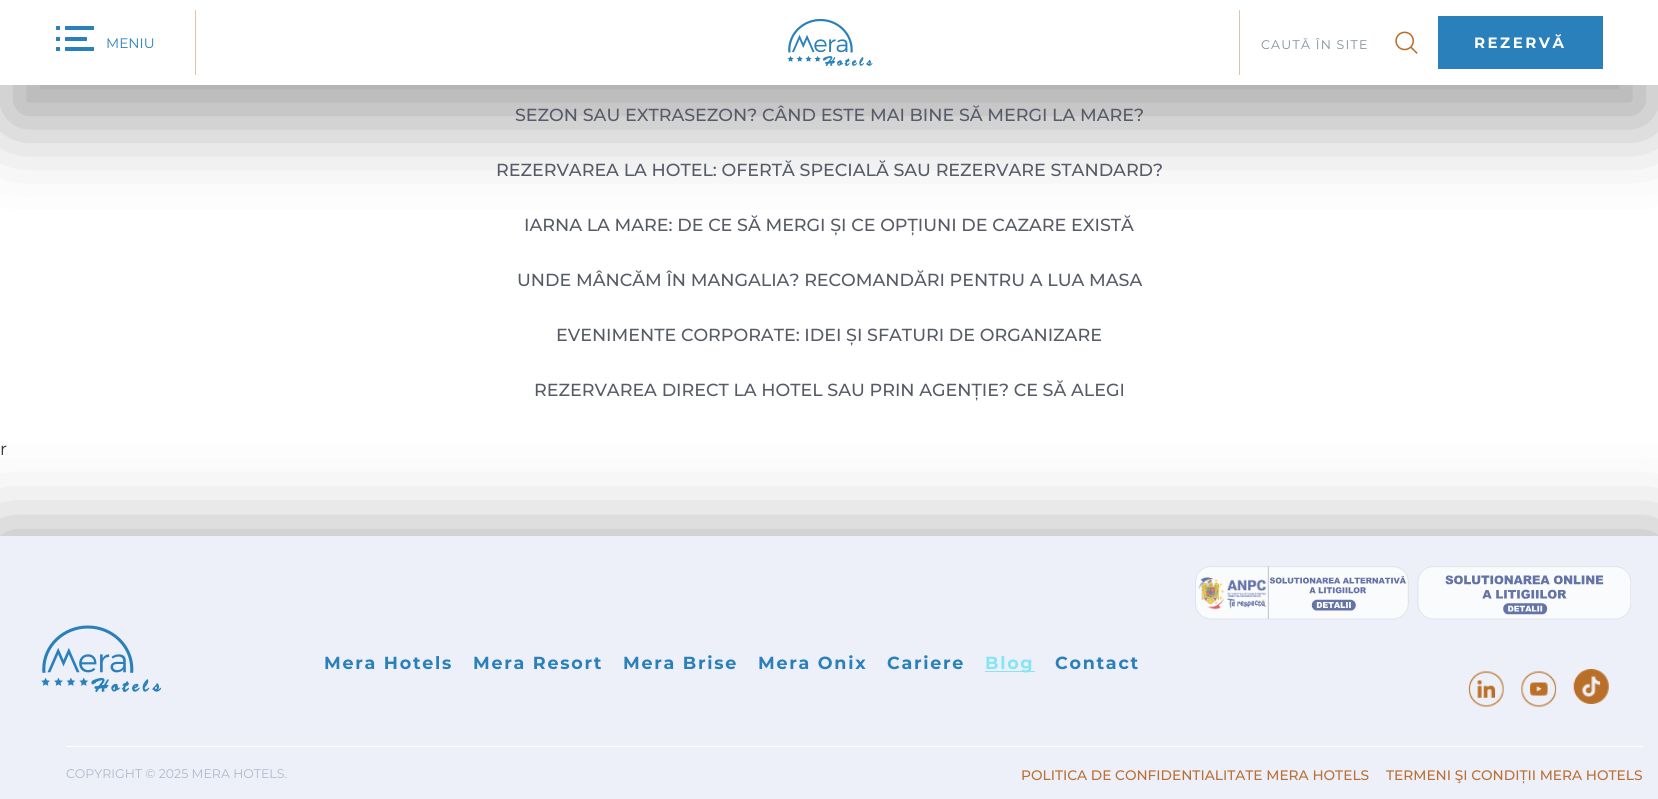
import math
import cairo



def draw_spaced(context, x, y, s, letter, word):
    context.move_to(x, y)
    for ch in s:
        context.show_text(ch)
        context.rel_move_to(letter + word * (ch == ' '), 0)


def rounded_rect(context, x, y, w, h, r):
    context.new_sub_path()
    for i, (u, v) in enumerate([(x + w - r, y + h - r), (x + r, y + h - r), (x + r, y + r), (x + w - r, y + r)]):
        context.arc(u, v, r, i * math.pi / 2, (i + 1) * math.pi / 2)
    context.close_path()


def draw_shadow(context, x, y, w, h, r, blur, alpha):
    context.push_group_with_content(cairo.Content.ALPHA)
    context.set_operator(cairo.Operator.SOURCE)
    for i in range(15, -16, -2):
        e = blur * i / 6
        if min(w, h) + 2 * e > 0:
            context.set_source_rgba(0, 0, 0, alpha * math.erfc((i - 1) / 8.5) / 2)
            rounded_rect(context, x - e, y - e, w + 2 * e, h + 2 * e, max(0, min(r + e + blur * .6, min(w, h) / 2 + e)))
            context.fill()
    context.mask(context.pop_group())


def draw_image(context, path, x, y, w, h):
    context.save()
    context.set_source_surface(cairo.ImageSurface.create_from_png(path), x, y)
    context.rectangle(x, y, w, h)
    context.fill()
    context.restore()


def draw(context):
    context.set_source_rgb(1, 1, 1)
    context.paint()
    context.set_source_rgb(0, 0, 0)
    draw_shadow(context, 6, 50, 1647, 73, 0, 40.5, 0.35)
    context.set_source_rgb(1, 1, 1)
    context.rectangle(0, 0, 1658, 85)
    context.fill()
    context.set_source_rgb(41 / 255, 128 / 255, 186 / 255)
    rounded_rect(context, 56, 26, 4, 4, 0.5)
    context.fill()
    rounded_rect(context, 65, 26, 29, 4, 0.5)
    context.fill()
    rounded_rect(context, 56, 37, 4, 4, 0.5)
    context.fill()
    rounded_rect(context, 65, 37, 22, 4, 0.5)
    context.fill()
    rounded_rect(context, 56, 47, 4, 4, 0.5)
    context.fill()
    rounded_rect(context, 65, 47, 29, 4, 0.5)
    context.fill()
    context.set_source_rgb(224 / 255, 194 / 255, 168 / 255)
    context.rectangle(195, 10, 1, 65)
    context.fill()
    draw_image(context, "images/1.png", 787, 18, 86, 48)
    context.rectangle(1239, 10, 1, 65)
    context.fill()
    draw_image(context, "images/2.png", 1395, 31, 23, 23)
    context.set_source_rgb(41 / 255, 128 / 255, 186 / 255)
    context.rectangle(1438, 16, 165, 53)
    context.fill()
    context.set_source_rgb(0, 0, 0)
    draw_shadow(context, -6, 536, 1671, 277, 0, 43, 0.35)
    context.set_source_rgb(237 / 255, 240 / 255, 249 / 255)
    context.rectangle(0, 536, 1658, 263)
    context.fill()
    draw_image(context, "images/3.png", 1195, 566, 214, 54)
    draw_image(context, "images/4.png", 1417, 566, 214, 54)
    draw_image(context, "images/5.png", 41, 625, 120, 67)
    context.set_source_rgb(133 / 255, 229 / 255, 244 / 255)
    context.rectangle(985, 671, 50, 1)
    context.fill()
    draw_image(context, "images/6.png", 1468, 671, 36, 36)
    draw_image(context, "images/7.png", 1521, 671, 36, 36)
    draw_image(context, "images/8.png", 1573, 669, 36, 35)
    context.set_source_rgb(1, 1, 1)
    context.rectangle(66, 746, 1577, 1)
    context.fill()
    context.select_font_face("Montserrat")
    context.set_font_size(13.75)
    context.set_source_rgb(41 / 255, 128 / 255, 186 / 255)
    context.move_to(106, 48)
    context.show_text("MENIU")
    context.set_font_size(12.5)
    context.set_source_rgb(130 / 255, 142 / 255, 153 / 255)
    draw_spaced(context, 1261, 49, "CAUTĂ ÎN SITE", 1.25, 0)
    context.select_font_face("Montserrat", cairo.FontSlant.NORMAL, cairo.FontWeight.BOLD)
    context.set_font_size(15)
    context.set_source_rgb(1, 1, 1)
    draw_spaced(context, 1474, 48, "REZERVĂ", 2.5, 0)
    context.select_font_face("Montserrat Medium")
    context.set_font_size(17.5)
    context.set_source_rgb(87 / 255, 91 / 255, 104 / 255)
    context.move_to(515, 121)
    context.show_text("SEZON SAU EXTRASEZON? CÂND ESTE MAI BINE SĂ MERGI LA MARE?")
    context.move_to(496, 176)
    context.show_text("REZERVAREA LA HOTEL: OFERTĂ SPECIALĂ SAU REZERVARE STANDARD?")
    context.move_to(524, 231)
    context.show_text("IARNA LA MARE: DE CE SĂ MERGI ȘI CE OPȚIUNI DE CAZARE EXISTĂ")
    context.move_to(517, 286)
    context.show_text("UNDE MÂNCĂM ÎN MANGALIA? RECOMANDĂRI PENTRU A LUA MASA")
    context.move_to(556, 341)
    context.show_text("EVENIMENTE CORPORATE: IDEI ȘI SFATURI DE ORGANIZARE")
    context.move_to(534, 396)
    context.show_text("REZERVAREA DIRECT LA HOTEL SAU PRIN AGENȚIE? CE SĂ ALEGI")
    context.select_font_face("Montserrat")
    context.set_source_rgb(51 / 255, 51 / 255, 51 / 255)
    context.move_to(0, 455)
    context.show_text("r")
    context.select_font_face("Montserrat", cairo.FontSlant.NORMAL, cairo.FontWeight.BOLD)
    context.set_source_rgb(41 / 255, 128 / 255, 186 / 255)
    draw_spaced(context, 324, 669, "Mera Hotels", 1.75, 0)
    draw_spaced(context, 473, 669, "Mera Resort", 1.75, 0)
    draw_spaced(context, 623, 669, "Mera Brise", 1.75, 0)
    draw_spaced(context, 758, 669, "Mera Onix", 1.75, 0)
    draw_spaced(context, 887, 669, "Cariere", 1.75, 0)
    context.set_source_rgb(133 / 255, 229 / 255, 244 / 255)
    draw_spaced(context, 985, 669, "Blog", 1.75, 0)
    context.set_source_rgb(41 / 255, 128 / 255, 186 / 255)
    draw_spaced(context, 1055, 669, "Contact", 1.75, 0)
    context.select_font_face("Montserrat")
    context.set_font_size(12.5)
    context.set_source_rgb(177 / 255, 183 / 255, 200 / 255)
    context.move_to(66, 778)
    context.show_text("COPYRIGHT © 2025 MERA HOTELS.")
    context.select_font_face("Montserrat Medium")
    context.set_font_size(13.75)
    context.set_source_rgb(185 / 255, 112 / 255, 50 / 255)
    context.move_to(1021, 780)
    context.show_text("POLITICA DE CONFIDENTIALITATE MERA HOTELS")
    context.move_to(1386, 780)
    context.show_text("TERMENI ŞI CONDIȚII MERA HOTELS")


surface = cairo.ImageSurface(cairo.Format.RGB24, 1658, 799)
context = cairo.Context(surface)
options = cairo.FontOptions()
options.set_hint_metrics(cairo.HintMetrics.OFF)
options.set_hint_style(cairo.HintStyle.NONE)
context.set_font_options(options)
context.set_miter_limit(4)
draw(context)
surface.write_to_png("out.png")
